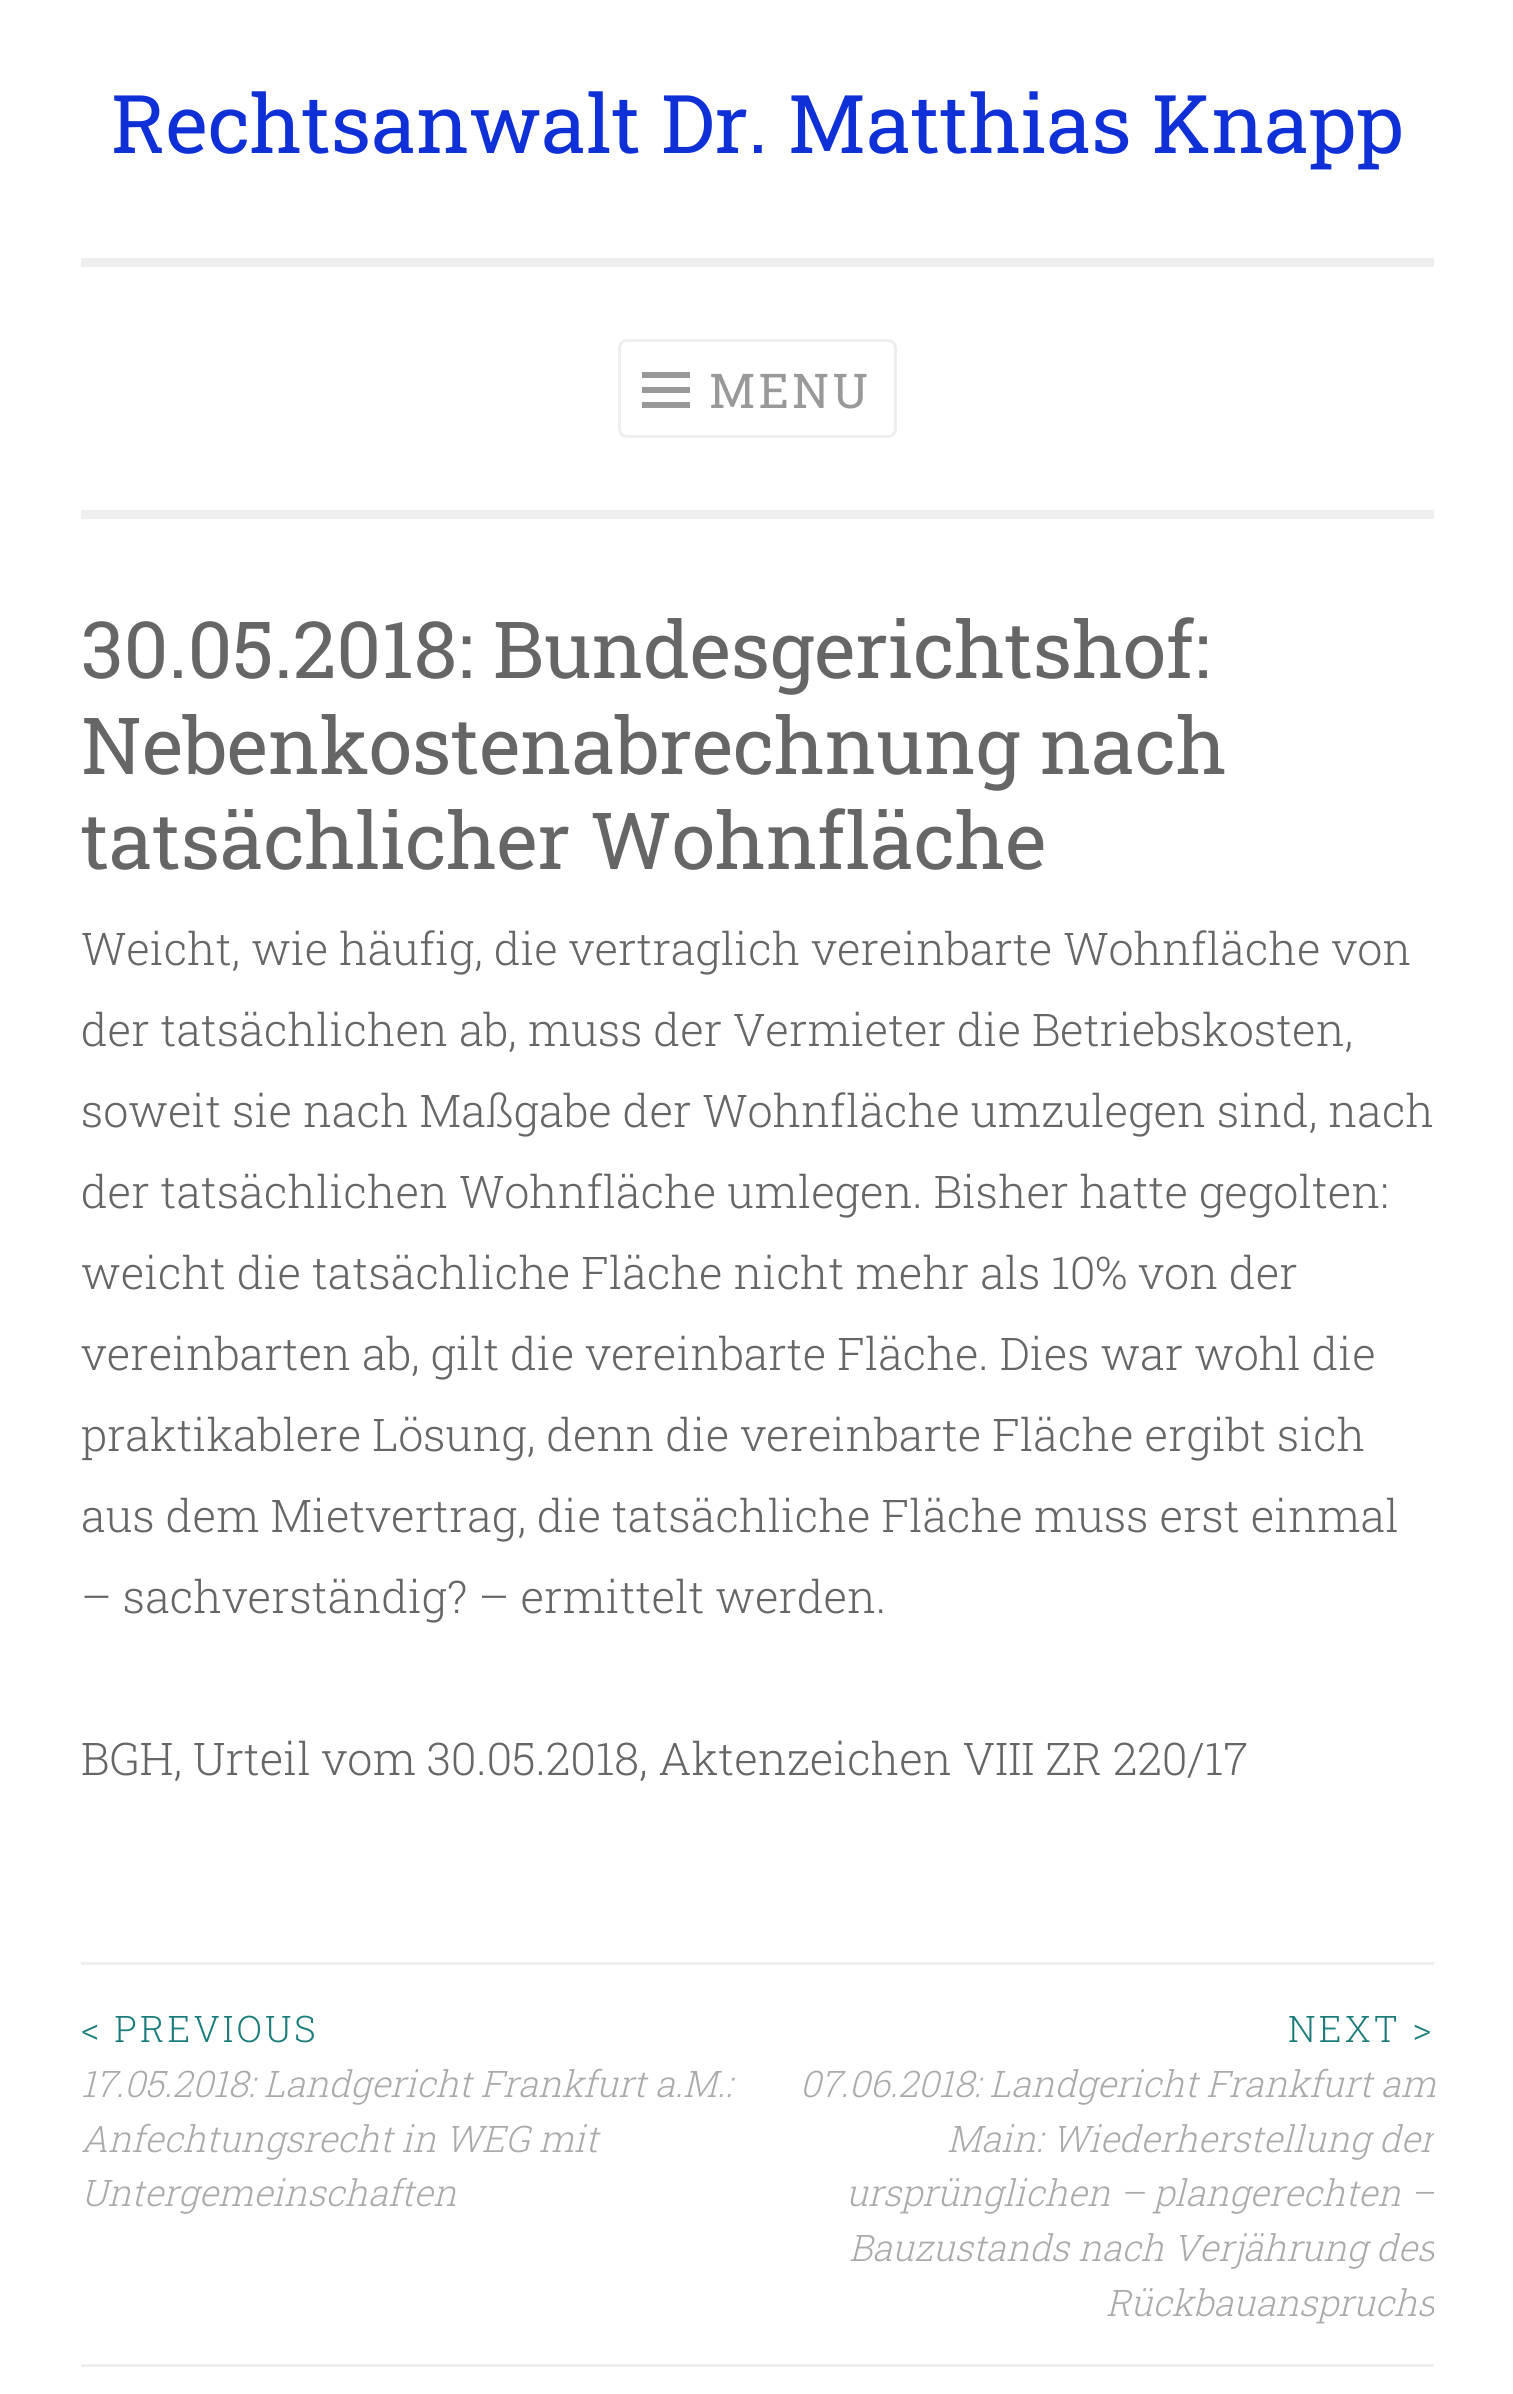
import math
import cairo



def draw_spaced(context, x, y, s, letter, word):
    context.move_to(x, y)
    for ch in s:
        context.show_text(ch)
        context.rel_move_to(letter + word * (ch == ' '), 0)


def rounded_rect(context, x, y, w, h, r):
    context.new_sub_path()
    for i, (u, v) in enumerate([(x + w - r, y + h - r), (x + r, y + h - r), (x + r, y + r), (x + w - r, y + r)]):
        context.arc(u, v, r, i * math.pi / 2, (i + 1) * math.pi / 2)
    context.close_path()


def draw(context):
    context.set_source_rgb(1, 1, 1)
    context.paint()
    context.set_source_rgb(238 / 255, 238 / 255, 238 / 255)
    context.rectangle(81, 510, 1353, 9)
    context.fill()
    context.rectangle(81, 258, 1353, 9)
    context.fill()
    rounded_rect(context, 619.5, 340.5, 276, 96, 7.5)
    context.set_line_width(3)
    context.stroke()
    context.set_source_rgb(153 / 255, 153 / 255, 153 / 255)
    context.new_path()
    context.move_to(642, 408)
    context.line_to(642, 402)
    context.line_to(690, 402)
    context.line_to(690, 408)
    context.close_path()
    context.move_to(642, 393)
    context.line_to(642, 387)
    context.line_to(690, 387)
    context.line_to(690, 393)
    context.close_path()
    context.move_to(642, 378)
    context.line_to(642, 372)
    context.line_to(690, 372)
    context.line_to(690, 378)
    context.close_path()
    context.fill()
    context.set_source_rgb(238 / 255, 238 / 255, 238 / 255)
    context.rectangle(81, 1962, 1353, 3)
    context.fill()
    context.rectangle(81, 2364, 1353, 3)
    context.fill()
    context.select_font_face("Roboto Slab")
    context.set_font_size(81)
    context.set_source_rgb(14 / 255, 48 / 255, 214 / 255)
    context.move_to(111, 153)
    context.show_text("Rechtsanwalt Dr. Matthias Knapp")
    context.set_font_size(48)
    context.set_source_rgb(153 / 255, 153 / 255, 153 / 255)
    draw_spaced(context, 709, 408, "MENU", 3, 0)
    context.set_font_size(78.75)
    context.set_source_rgb(102 / 255, 102 / 255, 102 / 255)
    context.move_to(81, 678)
    context.show_text("30.05.2018: Bundesgerichtshof:")
    context.move_to(81, 774)
    context.show_text("Nebenkostenabrechnung nach")
    context.move_to(81, 869)
    context.show_text("tatsächlicher Wohnfläche")
    context.select_font_face("Roboto Slab Light")
    context.set_font_size(45)
    context.move_to(81, 965)
    context.show_text("Weicht, wie häufig, die vertraglich vereinbarte Wohnfläche von")
    context.move_to(81, 1046)
    context.show_text("der tatsächlichen ab, muss der Vermieter die Betriebskosten,")
    context.move_to(81, 1127)
    context.show_text("soweit sie nach Maßgabe der Wohnfläche umzulegen sind, nach")
    context.move_to(81, 1208)
    context.show_text("der tatsächlichen Wohnfläche umlegen. Bisher hatte gegolten:")
    context.move_to(81, 1289)
    context.show_text("weicht die tatsächliche Fläche nicht mehr als 10% von der")
    context.move_to(81, 1370)
    context.show_text("vereinbarten ab, gilt die vereinbarte Fläche. Dies war wohl die")
    context.move_to(81, 1451)
    context.show_text("praktikablere Lösung, denn die vereinbarte Fläche ergibt sich")
    context.move_to(81, 1532)
    context.show_text("aus dem Mietvertrag, die tatsächliche Fläche muss erst einmal")
    context.move_to(81, 1613)
    context.show_text("– sachverständig? – ermittelt werden.")
    context.move_to(81, 1775)
    context.show_text("BGH, Urteil vom 30.05.2018, Aktenzeichen VIII ZR 220/17")
    context.set_font_size(36.6)
    context.set_source_rgb(28 / 255, 124 / 255, 124 / 255)
    draw_spaced(context, 81, 2042, "< PREVIOUS", 3, 0)
    context.select_font_face("Roboto Slab Light", cairo.FontSlant.ITALIC)
    context.set_source_rgb(170 / 255, 170 / 255, 170 / 255)
    context.move_to(81, 2097)
    context.show_text("17.05.2018: Landgericht Frankfurt a.M.:")
    context.move_to(81, 2152)
    context.show_text("Anfechtungsrecht in WEG mit")
    context.move_to(81, 2206)
    context.show_text("Untergemeinschaften")
    context.select_font_face("Roboto Slab Light")
    context.set_source_rgb(28 / 255, 124 / 255, 124 / 255)
    draw_spaced(context, 1288, 2042, "NEXT >", 3, 0)
    context.select_font_face("Roboto Slab Light", cairo.FontSlant.ITALIC)
    context.set_source_rgb(170 / 255, 170 / 255, 170 / 255)
    context.move_to(800, 2097)
    context.show_text("07.06.2018: Landgericht Frankfurt am")
    context.save()
    context.rectangle(81, 1965, 1353, 399)
    context.clip()
    context.move_to(947, 2152)
    context.show_text("Main: Wiederherstellung der")
    context.move_to(846, 2206)
    context.show_text("ursprünglichen – plangerechten –")
    context.move_to(849, 2261)
    context.show_text("Bauzustands nach Verjährung des")
    context.move_to(1106, 2316)
    context.show_text("Rückbauanspruchs")
    context.restore()


surface = cairo.ImageSurface(cairo.Format.RGB24, 1513, 2394)
context = cairo.Context(surface)
options = cairo.FontOptions()
options.set_hint_metrics(cairo.HintMetrics.OFF)
options.set_hint_style(cairo.HintStyle.NONE)
context.set_font_options(options)
context.set_miter_limit(4)
draw(context)
surface.write_to_png("out.png")
